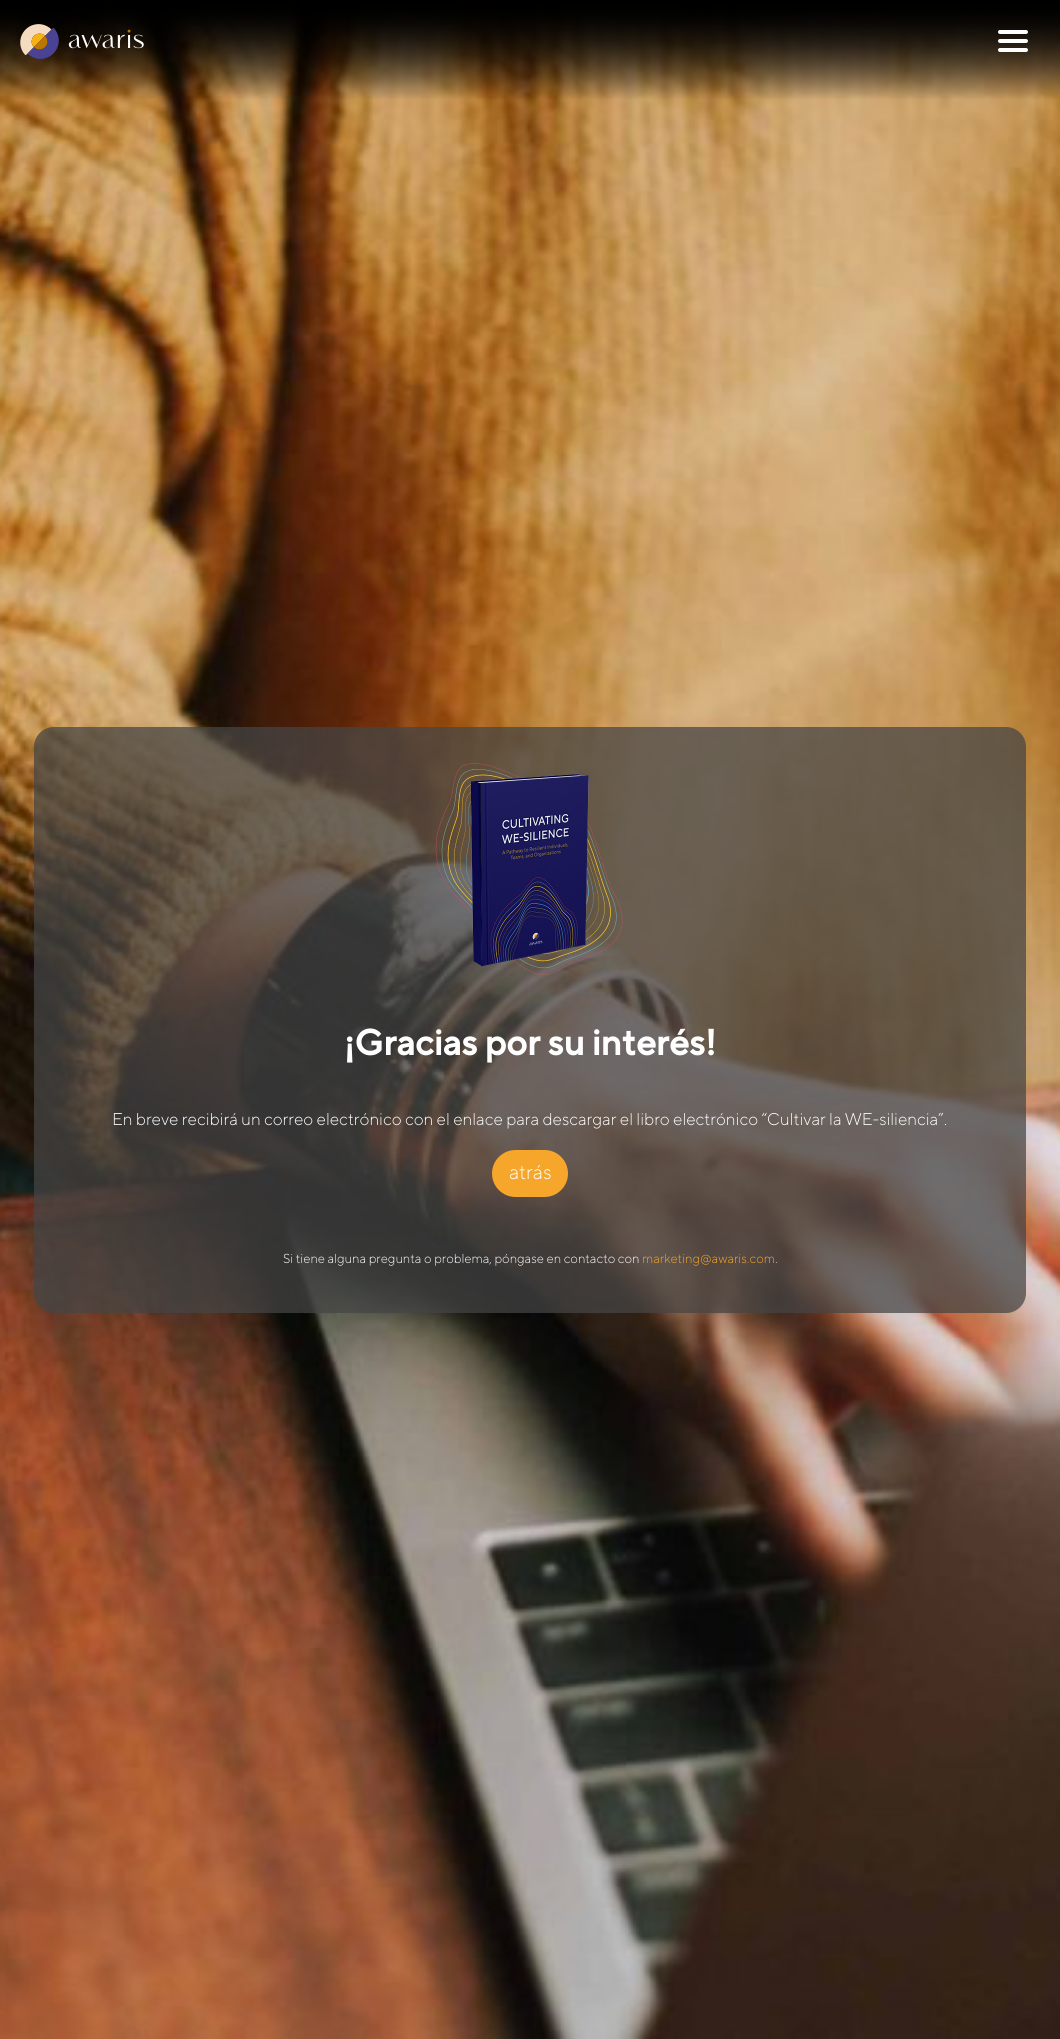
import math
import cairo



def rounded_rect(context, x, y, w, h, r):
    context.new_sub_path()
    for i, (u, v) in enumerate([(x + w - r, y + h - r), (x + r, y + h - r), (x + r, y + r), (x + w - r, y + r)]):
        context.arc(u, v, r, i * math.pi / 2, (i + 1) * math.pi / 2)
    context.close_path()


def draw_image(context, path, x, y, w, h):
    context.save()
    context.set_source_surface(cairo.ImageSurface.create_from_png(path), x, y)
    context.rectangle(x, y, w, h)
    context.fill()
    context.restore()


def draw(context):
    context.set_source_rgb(1, 1, 1)
    context.paint()
    draw_image(context, "images/2.png", 0, 0, 1060, 2039)
    draw_image(context, "images/1.png", 20, 24, 124, 35)
    context.set_source_rgb(1, 1, 1)
    rounded_rect(context, 998, 30, 30, 4, 2)
    context.fill()
    rounded_rect(context, 998, 39, 30, 4, 2)
    context.fill()
    rounded_rect(context, 998, 48, 30, 4, 2)
    context.fill()
    context.set_source_rgba(69 / 255, 69 / 255, 69 / 255, 0.73)
    rounded_rect(context, 34, 727, 992, 586, 20)
    context.fill()
    draw_image(context, "images/3.png", 435, 763, 188, 213)
    context.set_source_rgb(246 / 255, 166 / 255, 42 / 255)
    rounded_rect(context, 492, 1150, 76, 47, 23.5)
    context.fill()
    context.select_font_face("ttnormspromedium", cairo.FontSlant.NORMAL, cairo.FontWeight.BOLD)
    context.set_font_size(36)
    context.set_source_rgb(1, 1, 1)
    context.move_to(344, 1055)
    context.show_text("¡Gracias por su interés!")
    context.select_font_face("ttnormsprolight")
    context.set_font_size(17)
    context.move_to(112, 1125)
    context.show_text("En breve recibirá un correo electrónico con el enlace para descargar el libro electrónico “Cultivar la WE-siliencia”.")
    context.set_font_size(20)
    context.move_to(509, 1179)
    context.show_text("atrás")
    context.set_font_size(13)
    context.move_to(283, 1263)
    context.show_text("Si tiene alguna pregunta o problema, póngase en contacto con")
    context.set_source_rgb(246 / 255, 166 / 255, 42 / 255)
    context.move_to(642, 1263)
    context.show_text("marketing@awaris.com")
    context.set_source_rgb(1, 1, 1)
    context.move_to(775, 1263)
    context.show_text(".")


surface = cairo.ImageSurface(cairo.Format.RGB24, 1060, 2039)
context = cairo.Context(surface)
options = cairo.FontOptions()
options.set_hint_metrics(cairo.HintMetrics.OFF)
options.set_hint_style(cairo.HintStyle.NONE)
context.set_font_options(options)
context.set_miter_limit(4)
draw(context)
surface.write_to_png("out.png")
